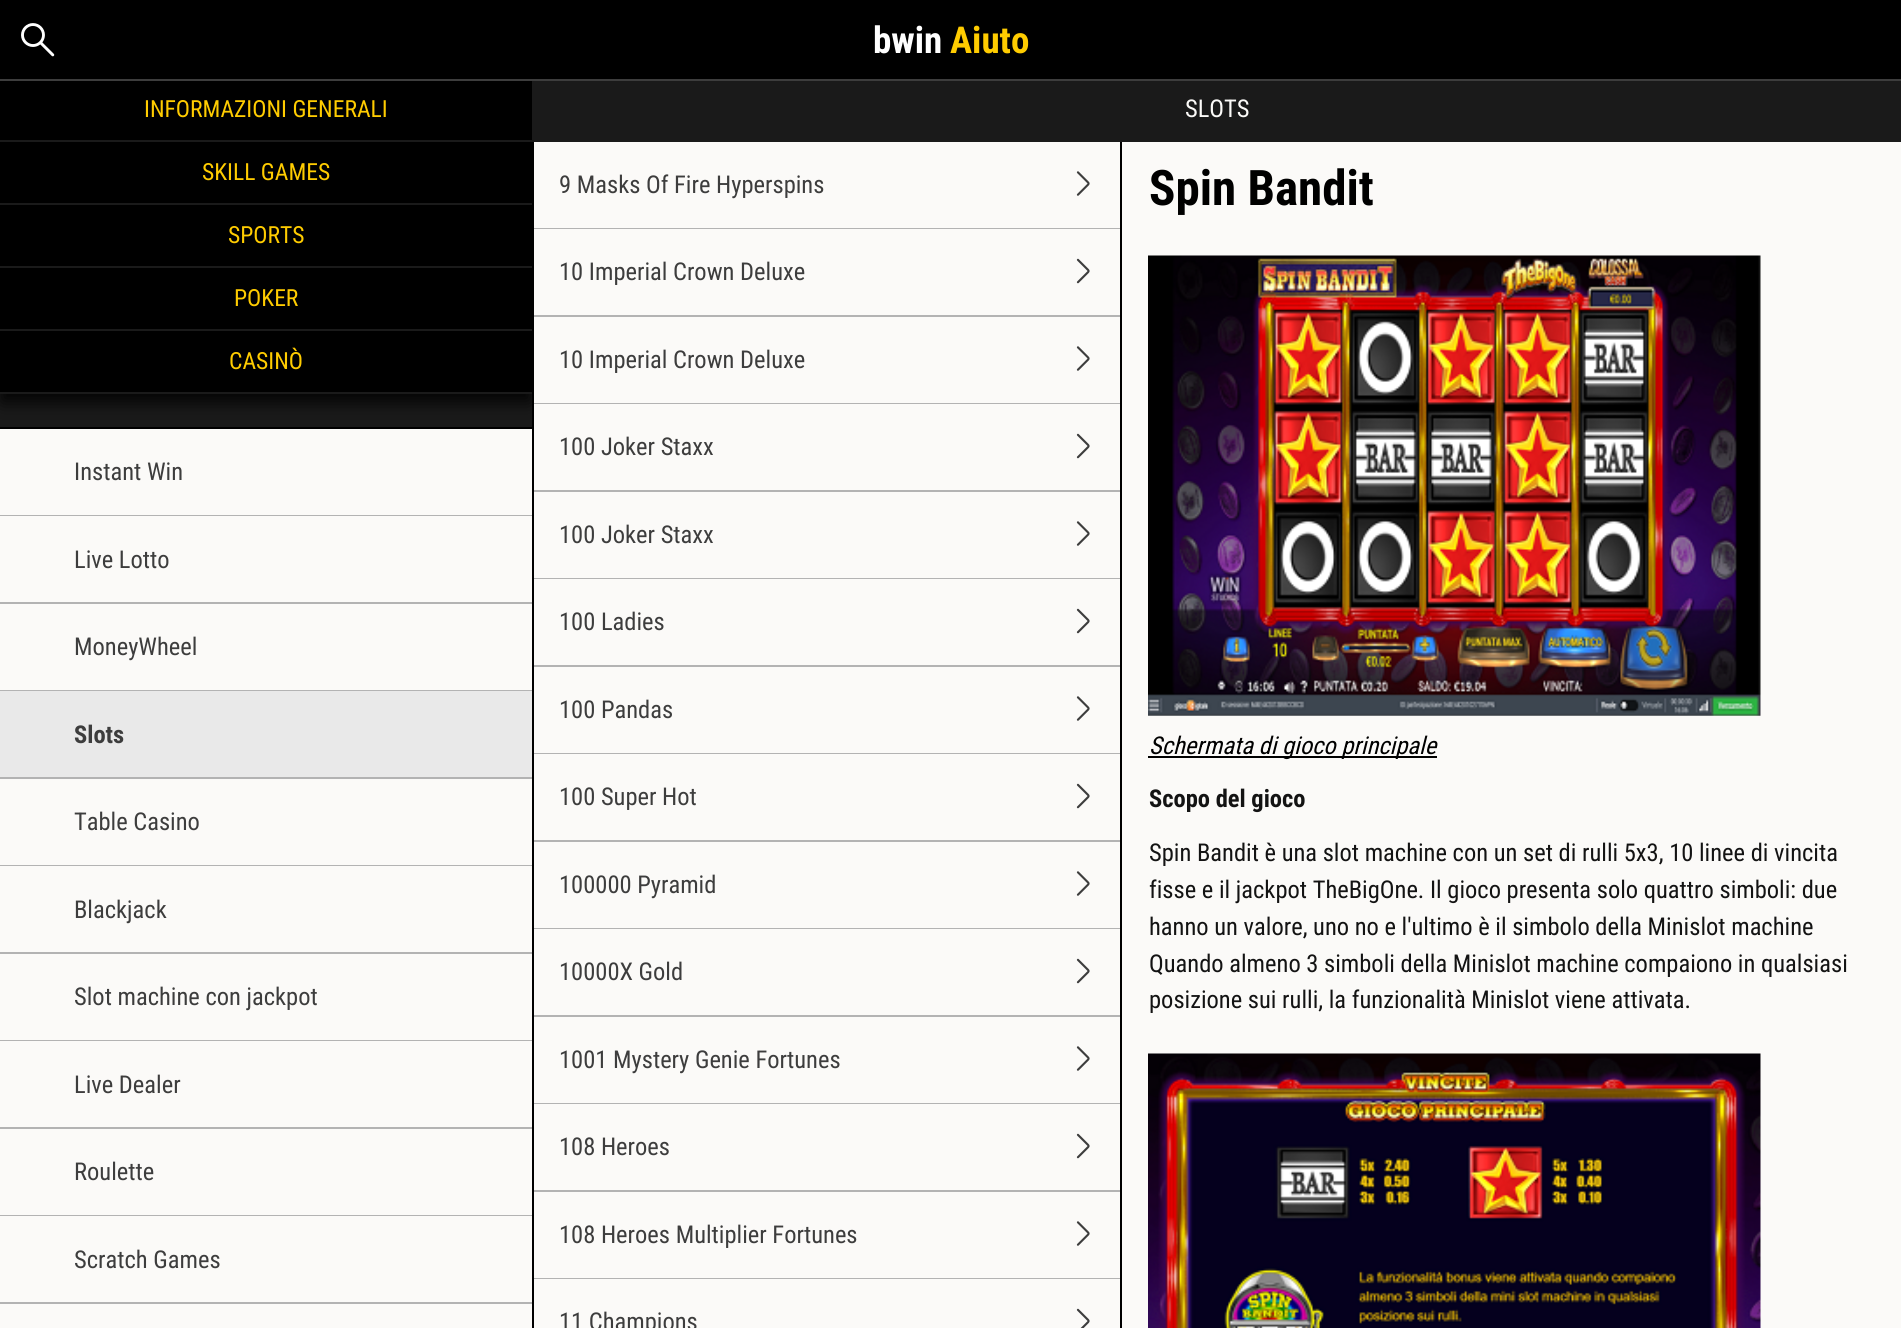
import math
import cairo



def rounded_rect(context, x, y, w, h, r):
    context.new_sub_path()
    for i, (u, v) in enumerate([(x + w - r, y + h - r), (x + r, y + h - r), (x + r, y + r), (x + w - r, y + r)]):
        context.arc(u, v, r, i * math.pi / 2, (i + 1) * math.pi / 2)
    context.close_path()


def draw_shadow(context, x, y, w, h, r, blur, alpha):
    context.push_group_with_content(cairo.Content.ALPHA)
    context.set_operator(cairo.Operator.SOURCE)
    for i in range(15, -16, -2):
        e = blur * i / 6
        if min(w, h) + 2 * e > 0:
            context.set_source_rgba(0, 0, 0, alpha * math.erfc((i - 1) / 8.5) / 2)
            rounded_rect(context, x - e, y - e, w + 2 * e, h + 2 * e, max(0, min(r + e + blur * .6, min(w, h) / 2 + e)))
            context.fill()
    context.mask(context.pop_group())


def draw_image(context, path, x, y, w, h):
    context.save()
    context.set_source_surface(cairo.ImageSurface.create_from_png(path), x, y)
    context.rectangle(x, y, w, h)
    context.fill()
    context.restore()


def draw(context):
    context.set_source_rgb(251 / 255, 250 / 255, 248 / 255)
    context.paint()
    context.set_source_rgb(26 / 255, 26 / 255, 26 / 255)
    context.rectangle(0, 394, 532, 33)
    context.fill()
    context.set_source_rgb(0, 0, 0)
    context.rectangle(0, 427, 532, 2)
    context.fill()
    context.rectangle(532, 142, 2, 1186)
    context.fill()
    context.set_source_rgb(179 / 255, 179 / 255, 179 / 255)
    context.rectangle(534, 228, 586, 1)
    context.fill()
    context.rectangle(534, 315, 586, 2)
    context.fill()
    context.rectangle(534, 403, 586, 1)
    context.fill()
    context.save()
    context.rectangle(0, 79, 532, 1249)
    context.clip()
    context.set_source_rgb(0, 0, 0)
    draw_shadow(context, 2, 89, 528, 312, 0, 9, 1)
    context.restore()
    context.set_source_rgb(0, 0, 0)
    context.rectangle(0, 0, 1901, 79)
    context.fill()
    context.set_source_rgb(61 / 255, 61 / 255, 61 / 255)
    context.rectangle(0, 79, 1901, 2)
    context.fill()
    draw_image(context, "images/1.png", 21, 23, 34, 34)
    context.set_source_rgb(0, 0, 0)
    context.rectangle(0, 81, 532, 59)
    context.fill()
    context.set_source_rgb(26 / 255, 26 / 255, 26 / 255)
    context.rectangle(0, 140, 532, 2)
    context.fill()
    context.set_source_rgb(0, 0, 0)
    context.rectangle(0, 142, 532, 61)
    context.fill()
    context.set_source_rgb(26 / 255, 26 / 255, 26 / 255)
    context.rectangle(0, 203, 532, 2)
    context.fill()
    context.set_source_rgb(0, 0, 0)
    context.rectangle(0, 205, 532, 61)
    context.fill()
    context.set_source_rgb(26 / 255, 26 / 255, 26 / 255)
    context.rectangle(0, 266, 532, 2)
    context.fill()
    context.set_source_rgb(0, 0, 0)
    context.rectangle(0, 268, 532, 61)
    context.fill()
    context.set_source_rgb(26 / 255, 26 / 255, 26 / 255)
    context.rectangle(0, 329, 532, 2)
    context.fill()
    context.set_source_rgb(0, 0, 0)
    context.rectangle(0, 331, 532, 61)
    context.fill()
    context.set_source_rgb(26 / 255, 26 / 255, 26 / 255)
    context.rectangle(0, 392, 532, 2)
    context.fill()
    context.set_source_rgb(179 / 255, 179 / 255, 179 / 255)
    context.rectangle(0, 515, 532, 1)
    context.fill()
    context.rectangle(0, 602, 532, 2)
    context.fill()
    context.rectangle(0, 690, 532, 1)
    context.fill()
    context.rectangle(0, 777, 532, 2)
    context.fill()
    context.set_source_rgb(233 / 255, 233 / 255, 233 / 255)
    context.rectangle(0, 691, 532, 86)
    context.fill()
    context.set_source_rgb(179 / 255, 179 / 255, 179 / 255)
    context.rectangle(0, 865, 532, 1)
    context.fill()
    context.rectangle(0, 952, 532, 2)
    context.fill()
    context.rectangle(0, 1040, 532, 1)
    context.fill()
    context.rectangle(0, 1127, 532, 2)
    context.fill()
    context.rectangle(0, 1215, 532, 1)
    context.fill()
    context.rectangle(0, 1302, 532, 2)
    context.fill()
    context.set_source_rgb(26 / 255, 26 / 255, 26 / 255)
    context.rectangle(532, 81, 1369, 61)
    context.fill()
    context.set_source_rgb(0, 0, 0)
    context.rectangle(1120, 142, 2, 1186)
    context.fill()
    draw_image(context, "images/2.png", 1076, 171, 14, 25)
    draw_image(context, "images/3.png", 1076, 258, 14, 26)
    draw_image(context, "images/2.png", 1076, 346, 14, 25)
    context.set_source_rgb(179 / 255, 179 / 255, 179 / 255)
    context.rectangle(534, 490, 586, 2)
    context.fill()
    draw_image(context, "images/3.png", 1076, 433, 14, 26)
    context.rectangle(534, 578, 586, 1)
    context.fill()
    draw_image(context, "images/2.png", 1076, 521, 14, 25)
    context.rectangle(534, 665, 586, 2)
    context.fill()
    draw_image(context, "images/3.png", 1076, 608, 14, 26)
    context.rectangle(534, 753, 586, 1)
    context.fill()
    draw_image(context, "images/2.png", 1076, 696, 14, 25)
    context.rectangle(534, 840, 586, 2)
    context.fill()
    draw_image(context, "images/3.png", 1076, 783, 14, 26)
    context.rectangle(534, 928, 586, 1)
    context.fill()
    draw_image(context, "images/2.png", 1076, 871, 14, 25)
    context.rectangle(534, 1015, 586, 2)
    context.fill()
    draw_image(context, "images/3.png", 1076, 958, 14, 26)
    context.rectangle(534, 1103, 586, 1)
    context.fill()
    draw_image(context, "images/2.png", 1076, 1046, 14, 25)
    context.rectangle(534, 1190, 586, 2)
    context.fill()
    draw_image(context, "images/3.png", 1076, 1133, 14, 26)
    context.rectangle(534, 1278, 586, 1)
    context.fill()
    draw_image(context, "images/2.png", 1076, 1221, 14, 25)
    draw_image(context, "images/4.png", 1076, 1308, 14, 20)
    draw_image(context, "images/5.png", 1148, 255, 613, 461)
    context.set_source_rgb(0, 0, 0)
    context.rectangle(1148, 756, 289, 2)
    context.fill()
    draw_image(context, "images/6.png", 1148, 1053, 613, 275)
    context.select_font_face("Roboto Condensed", cairo.FontSlant.NORMAL, cairo.FontWeight.BOLD)
    context.set_font_size(37)
    context.set_source_rgb(1, 1, 1)
    context.move_to(873, 53)
    context.show_text("bwin")
    context.set_source_rgb(1, 204 / 255, 0)
    context.move_to(950, 53)
    context.show_text("Aiuto")
    context.select_font_face("Roboto Condensed")
    context.set_font_size(23.6)
    context.move_to(144, 117)
    context.show_text("INFORMAZIONI GENERALI")
    context.move_to(202, 180)
    context.show_text("SKILL GAMES")
    context.move_to(228, 243)
    context.show_text("SPORTS")
    context.move_to(234, 306)
    context.show_text("POKER")
    context.move_to(229, 369)
    context.show_text("CASINÒ")
    context.set_font_size(24.5)
    context.set_source_rgb(61 / 255, 61 / 255, 61 / 255)
    context.move_to(74, 480)
    context.show_text("Instant Win")
    context.move_to(74, 568)
    context.show_text("Live Lotto")
    context.move_to(74, 655)
    context.show_text("MoneyWheel")
    context.select_font_face("Roboto Condensed", cairo.FontSlant.NORMAL, cairo.FontWeight.BOLD)
    context.move_to(74, 743)
    context.show_text("Slots")
    context.select_font_face("Roboto Condensed")
    context.move_to(74, 830)
    context.show_text("Table Casino")
    context.move_to(74, 918)
    context.show_text("Blackjack")
    context.move_to(74, 1005)
    context.show_text("Slot machine con jackpot")
    context.move_to(74, 1093)
    context.show_text("Live Dealer")
    context.move_to(74, 1180)
    context.show_text("Roulette")
    context.move_to(74, 1268)
    context.show_text("Scratch Games")
    context.set_source_rgb(251 / 255, 250 / 255, 248 / 255)
    context.move_to(1185, 117)
    context.show_text("SLOTS")
    context.set_source_rgb(61 / 255, 61 / 255, 61 / 255)
    context.move_to(559, 193)
    context.show_text("9 Masks Of Fire Hyperspins")
    context.move_to(559, 280)
    context.show_text("10 Imperial Crown Deluxe")
    context.move_to(559, 368)
    context.show_text("10 Imperial Crown Deluxe")
    context.move_to(559, 455)
    context.show_text("100 Joker Staxx")
    context.move_to(559, 543)
    context.show_text("100 Joker Staxx")
    context.move_to(559, 630)
    context.show_text("100 Ladies")
    context.move_to(559, 718)
    context.show_text("100 Pandas")
    context.move_to(559, 805)
    context.show_text("100 Super Hot")
    context.move_to(559, 893)
    context.show_text("100000 Pyramid")
    context.move_to(559, 980)
    context.show_text("10000X Gold")
    context.move_to(559, 1068)
    context.show_text("1001 Mystery Genie Fortunes")
    context.move_to(559, 1155)
    context.show_text("108 Heroes")
    context.move_to(559, 1243)
    context.show_text("108 Heroes Multiplier Fortunes")
    context.move_to(559, 1330)
    context.show_text("11 Champions")
    context.select_font_face("Roboto Condensed", cairo.FontSlant.NORMAL, cairo.FontWeight.BOLD)
    context.set_font_size(49)
    context.set_source_rgb(0, 0, 0)
    context.move_to(1149, 205)
    context.show_text("Spin Bandit")
    context.select_font_face("Roboto Condensed", cairo.FontSlant.ITALIC)
    context.set_font_size(24.5)
    context.move_to(1149, 754)
    context.show_text("Schermata di gioco principale")
    context.select_font_face("Roboto Condensed", cairo.FontSlant.NORMAL, cairo.FontWeight.BOLD)
    context.set_source_rgb(19 / 255, 19 / 255, 19 / 255)
    context.move_to(1149, 807)
    context.show_text("Scopo del gioco")
    context.select_font_face("Roboto Condensed")
    context.move_to(1149, 861)
    context.show_text("Spin Bandit è una slot machine con un set di rulli 5x3, 10 linee di vincita")
    context.move_to(1149, 898)
    context.show_text("fisse e il jackpot TheBigOne. Il gioco presenta solo quattro simboli: due")
    context.move_to(1149, 935)
    context.show_text("hanno un valore, uno no e l'ultimo è il simbolo della Minislot machine")
    context.move_to(1149, 972)
    context.show_text("Quando almeno 3 simboli della Minislot machine compaiono in qualsiasi")
    context.move_to(1149, 1008)
    context.show_text("posizione sui rulli, la funzionalità Minislot viene attivata.")


surface = cairo.ImageSurface(cairo.Format.RGB24, 1901, 1328)
context = cairo.Context(surface)
options = cairo.FontOptions()
options.set_hint_metrics(cairo.HintMetrics.OFF)
options.set_hint_style(cairo.HintStyle.NONE)
context.set_font_options(options)
context.set_miter_limit(4)
draw(context)
surface.write_to_png("out.png")
